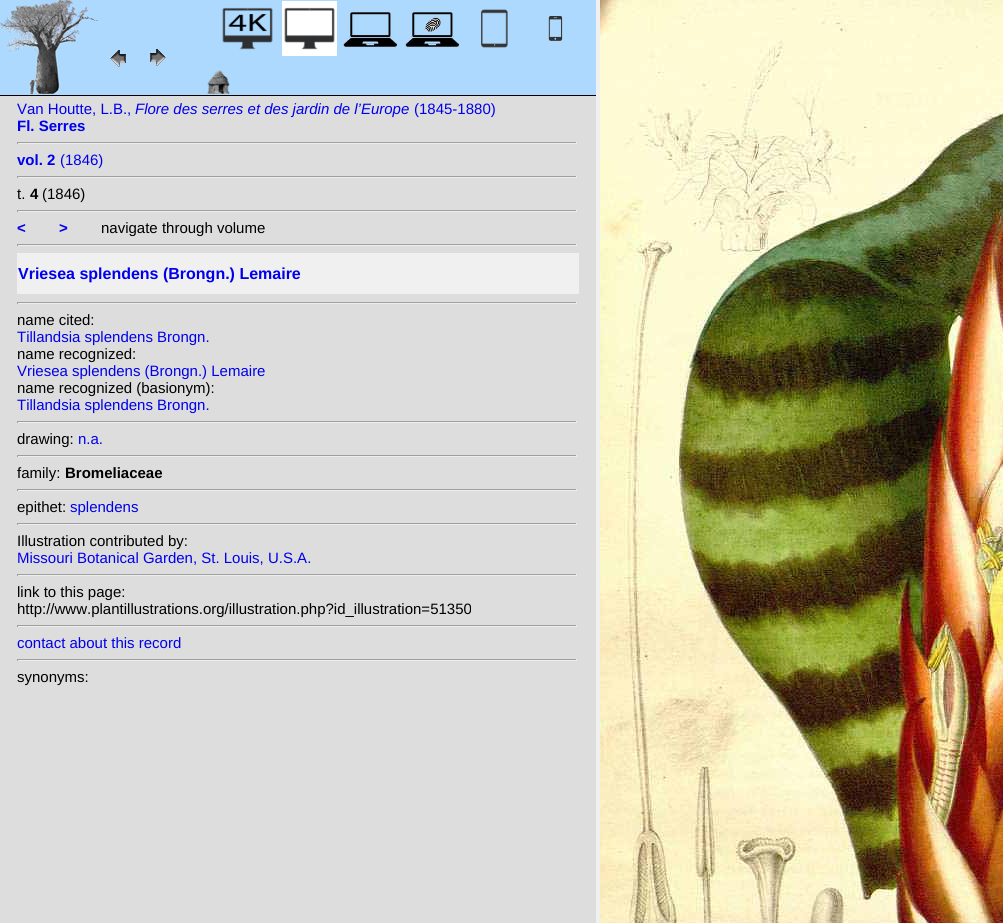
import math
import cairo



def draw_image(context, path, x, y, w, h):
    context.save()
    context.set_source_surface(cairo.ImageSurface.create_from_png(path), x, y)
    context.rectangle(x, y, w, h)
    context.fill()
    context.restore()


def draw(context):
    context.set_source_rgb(240 / 255, 240 / 255, 240 / 255)
    context.paint()
    context.set_source_rgb(221 / 255, 221 / 255, 221 / 255)
    context.rectangle(0, 96, 596, 827)
    context.fill()
    context.set_source_rgb(173 / 255, 217 / 255, 254 / 255)
    context.rectangle(0, 0, 596, 95)
    context.fill()
    context.set_source_rgb(0, 0, 0)
    context.rectangle(0, 95, 596, 1)
    context.fill()
    draw_image(context, "images/1.png", 0, 0, 100, 94)
    draw_image(context, "images/2.png", 110, 50, 16, 17)
    draw_image(context, "images/3.png", 150, 49, 16, 17)
    draw_image(context, "images/4.png", 222, 7, 51, 43)
    draw_image(context, "images/5.png", 282, 1, 55, 55)
    draw_image(context, "images/6.png", 343, 9, 55, 38)
    draw_image(context, "images/7.png", 405, 9, 55, 38)
    draw_image(context, "images/8.png", 481, 9, 27, 39)
    draw_image(context, "images/9.png", 548, 15, 15, 26)
    draw_image(context, "images/10.png", 207, 70, 23, 24)
    context.set_source_rgb(159 / 255, 159 / 255, 159 / 255)
    context.rectangle(17, 142, 560, 1)
    context.fill()
    context.set_source_rgb(238 / 255, 238 / 255, 238 / 255)
    context.rectangle(576, 142, 1, 2)
    context.fill()
    context.rectangle(17, 143, 560, 1)
    context.fill()
    context.set_source_rgb(159 / 255, 159 / 255, 159 / 255)
    context.rectangle(17, 142, 1, 2)
    context.fill()
    context.rectangle(17, 176, 560, 1)
    context.fill()
    context.set_source_rgb(238 / 255, 238 / 255, 238 / 255)
    context.rectangle(576, 176, 1, 2)
    context.fill()
    context.rectangle(17, 177, 560, 1)
    context.fill()
    context.set_source_rgb(159 / 255, 159 / 255, 159 / 255)
    context.rectangle(17, 176, 1, 2)
    context.fill()
    context.rectangle(17, 210, 560, 1)
    context.fill()
    context.set_source_rgb(238 / 255, 238 / 255, 238 / 255)
    context.rectangle(576, 210, 1, 2)
    context.fill()
    context.rectangle(17, 211, 560, 1)
    context.fill()
    context.set_source_rgb(159 / 255, 159 / 255, 159 / 255)
    context.rectangle(17, 210, 1, 2)
    context.fill()
    context.rectangle(17, 244, 560, 1)
    context.fill()
    context.set_source_rgb(238 / 255, 238 / 255, 238 / 255)
    context.rectangle(576, 244, 1, 2)
    context.fill()
    context.rectangle(17, 245, 560, 1)
    context.fill()
    context.set_source_rgb(159 / 255, 159 / 255, 159 / 255)
    context.rectangle(17, 244, 1, 2)
    context.fill()
    context.set_source_rgb(240 / 255, 240 / 255, 240 / 255)
    context.rectangle(17, 253, 562, 41)
    context.fill()
    context.set_source_rgb(159 / 255, 159 / 255, 159 / 255)
    context.rectangle(17, 302, 560, 1)
    context.fill()
    context.set_source_rgb(238 / 255, 238 / 255, 238 / 255)
    context.rectangle(576, 302, 1, 2)
    context.fill()
    context.rectangle(17, 303, 560, 1)
    context.fill()
    context.set_source_rgb(159 / 255, 159 / 255, 159 / 255)
    context.rectangle(17, 302, 1, 2)
    context.fill()
    context.rectangle(17, 421, 560, 1)
    context.fill()
    context.set_source_rgb(238 / 255, 238 / 255, 238 / 255)
    context.rectangle(576, 421, 1, 2)
    context.fill()
    context.rectangle(17, 422, 560, 1)
    context.fill()
    context.set_source_rgb(159 / 255, 159 / 255, 159 / 255)
    context.rectangle(17, 421, 1, 2)
    context.fill()
    context.rectangle(17, 455, 560, 1)
    context.fill()
    context.set_source_rgb(238 / 255, 238 / 255, 238 / 255)
    context.rectangle(576, 455, 1, 2)
    context.fill()
    context.rectangle(17, 456, 560, 1)
    context.fill()
    context.set_source_rgb(159 / 255, 159 / 255, 159 / 255)
    context.rectangle(17, 455, 1, 2)
    context.fill()
    context.rectangle(17, 489, 560, 1)
    context.fill()
    context.set_source_rgb(238 / 255, 238 / 255, 238 / 255)
    context.rectangle(576, 489, 1, 2)
    context.fill()
    context.rectangle(17, 490, 560, 1)
    context.fill()
    context.set_source_rgb(159 / 255, 159 / 255, 159 / 255)
    context.rectangle(17, 489, 1, 2)
    context.fill()
    context.rectangle(17, 523, 560, 1)
    context.fill()
    context.set_source_rgb(238 / 255, 238 / 255, 238 / 255)
    context.rectangle(576, 523, 1, 2)
    context.fill()
    context.rectangle(17, 524, 560, 1)
    context.fill()
    context.set_source_rgb(159 / 255, 159 / 255, 159 / 255)
    context.rectangle(17, 523, 1, 2)
    context.fill()
    context.rectangle(17, 574, 560, 1)
    context.fill()
    context.set_source_rgb(238 / 255, 238 / 255, 238 / 255)
    context.rectangle(576, 574, 1, 2)
    context.fill()
    context.rectangle(17, 575, 560, 1)
    context.fill()
    context.set_source_rgb(159 / 255, 159 / 255, 159 / 255)
    context.rectangle(17, 574, 1, 2)
    context.fill()
    context.rectangle(17, 625, 560, 1)
    context.fill()
    context.set_source_rgb(238 / 255, 238 / 255, 238 / 255)
    context.rectangle(576, 625, 1, 2)
    context.fill()
    context.rectangle(17, 626, 560, 1)
    context.fill()
    context.set_source_rgb(159 / 255, 159 / 255, 159 / 255)
    context.rectangle(17, 625, 1, 2)
    context.fill()
    context.rectangle(17, 659, 560, 1)
    context.fill()
    context.set_source_rgb(238 / 255, 238 / 255, 238 / 255)
    context.rectangle(576, 659, 1, 2)
    context.fill()
    context.rectangle(17, 660, 560, 1)
    context.fill()
    context.set_source_rgb(159 / 255, 159 / 255, 159 / 255)
    context.rectangle(17, 659, 1, 2)
    context.fill()
    draw_image(context, "images/11.png", 600, 0, 403, 923)
    context.select_font_face("Liberation Sans")
    context.set_font_size(15)
    context.set_source_rgb(0, 0, 238 / 255)
    context.move_to(17, 114)
    context.show_text("Van Houtte, L.B.,")
    context.select_font_face("Liberation Sans", cairo.FontSlant.ITALIC)
    context.move_to(135, 114)
    context.show_text("Flore des serres et des jardin de l’Europe")
    context.select_font_face("Liberation Sans")
    context.move_to(414, 114)
    context.show_text("(1845-1880)")
    context.select_font_face("Liberation Sans", cairo.FontSlant.NORMAL, cairo.FontWeight.BOLD)
    context.move_to(17, 131)
    context.show_text("Fl. Serres")
    context.move_to(17, 165)
    context.show_text("vol. 2")
    context.select_font_face("Liberation Sans")
    context.move_to(60, 165)
    context.show_text("(1846)")
    context.set_source_rgb(0, 0, 0)
    context.move_to(17, 199)
    context.show_text("t.")
    context.select_font_face("Liberation Sans", cairo.FontSlant.NORMAL, cairo.FontWeight.BOLD)
    context.move_to(30, 199)
    context.show_text("4")
    context.select_font_face("Liberation Sans")
    context.move_to(42, 199)
    context.show_text("(1846)")
    context.select_font_face("Liberation Sans", cairo.FontSlant.NORMAL, cairo.FontWeight.BOLD)
    context.set_source_rgb(0, 0, 238 / 255)
    context.move_to(17, 233)
    context.show_text("<")
    context.move_to(59, 233)
    context.show_text(">")
    context.select_font_face("Liberation Sans")
    context.set_source_rgb(0, 0, 0)
    context.move_to(101, 233)
    context.show_text("navigate through volume")
    context.select_font_face("Liberation Sans", cairo.FontSlant.NORMAL, cairo.FontWeight.BOLD)
    context.set_font_size(16)
    context.set_source_rgb(0, 0, 238 / 255)
    context.move_to(18, 279)
    context.show_text("Vriesea splendens (Brongn.) Lemaire")
    context.select_font_face("Liberation Sans")
    context.set_font_size(15)
    context.set_source_rgb(0, 0, 0)
    context.move_to(17, 325)
    context.show_text("name cited:")
    context.set_source_rgb(0, 0, 238 / 255)
    context.move_to(17, 342)
    context.show_text("Tillandsia splendens Brongn.")
    context.set_source_rgb(0, 0, 0)
    context.move_to(17, 359)
    context.show_text("name recognized:")
    context.set_source_rgb(0, 0, 238 / 255)
    context.move_to(17, 376)
    context.show_text("Vriesea splendens (Brongn.) Lemaire")
    context.set_source_rgb(0, 0, 0)
    context.move_to(17, 393)
    context.show_text("name recognized (basionym):")
    context.set_source_rgb(0, 0, 238 / 255)
    context.move_to(17, 410)
    context.show_text("Tillandsia splendens Brongn.")
    context.set_source_rgb(0, 0, 0)
    context.move_to(17, 444)
    context.show_text("drawing:")
    context.set_source_rgb(0, 0, 238 / 255)
    context.move_to(78, 444)
    context.show_text("n.a.")
    context.set_source_rgb(0, 0, 0)
    context.move_to(17, 478)
    context.show_text("family:")
    context.select_font_face("Liberation Sans", cairo.FontSlant.NORMAL, cairo.FontWeight.BOLD)
    context.move_to(65, 478)
    context.show_text("Bromeliaceae")
    context.select_font_face("Liberation Sans")
    context.move_to(17, 512)
    context.show_text("epithet:")
    context.set_source_rgb(0, 0, 238 / 255)
    context.move_to(70, 512)
    context.show_text("splendens")
    context.set_source_rgb(0, 0, 0)
    context.move_to(17, 546)
    context.show_text("Illustration contributed by:")
    context.set_source_rgb(0, 0, 238 / 255)
    context.move_to(17, 563)
    context.show_text("Missouri Botanical Garden, St. Louis, U.S.A.")
    context.set_source_rgb(0, 0, 0)
    context.move_to(17, 597)
    context.show_text("link to this page:")
    context.move_to(17, 614)
    context.show_text("http://www.plantillustrations.org/illustration.php?id_illustration=51350")
    context.set_source_rgb(0, 0, 238 / 255)
    context.move_to(17, 648)
    context.show_text("contact about this record")
    context.set_source_rgb(0, 0, 0)
    context.move_to(17, 682)
    context.show_text("synonyms:")


surface = cairo.ImageSurface(cairo.Format.RGB24, 1003, 923)
context = cairo.Context(surface)
options = cairo.FontOptions()
options.set_hint_metrics(cairo.HintMetrics.OFF)
options.set_hint_style(cairo.HintStyle.NONE)
context.set_font_options(options)
context.set_miter_limit(4)
draw(context)
surface.write_to_png("out.png")
